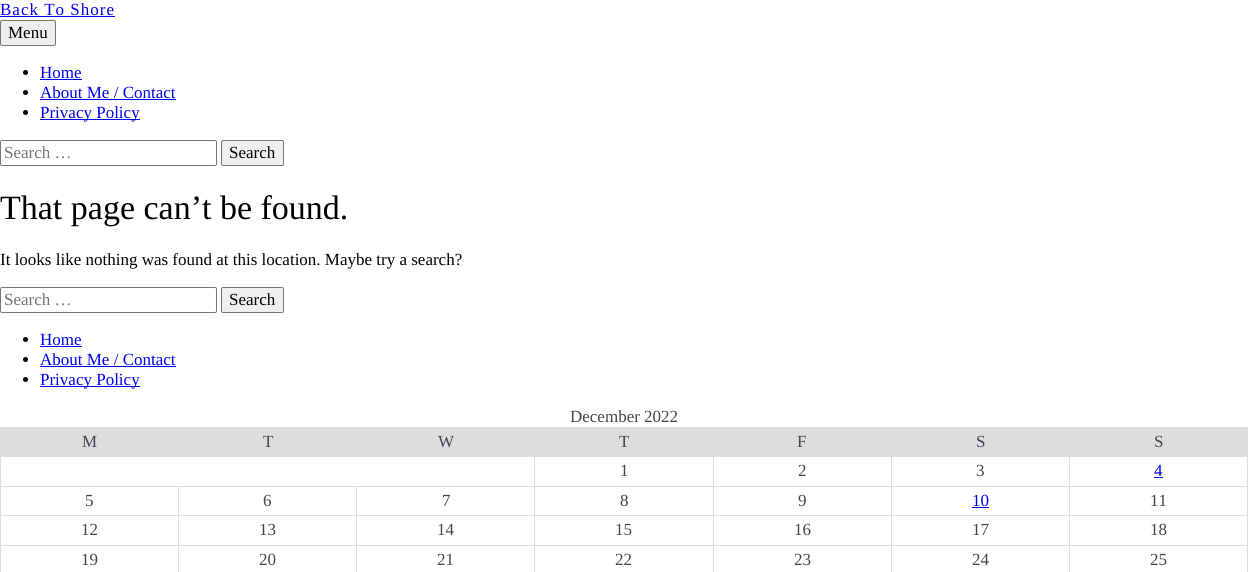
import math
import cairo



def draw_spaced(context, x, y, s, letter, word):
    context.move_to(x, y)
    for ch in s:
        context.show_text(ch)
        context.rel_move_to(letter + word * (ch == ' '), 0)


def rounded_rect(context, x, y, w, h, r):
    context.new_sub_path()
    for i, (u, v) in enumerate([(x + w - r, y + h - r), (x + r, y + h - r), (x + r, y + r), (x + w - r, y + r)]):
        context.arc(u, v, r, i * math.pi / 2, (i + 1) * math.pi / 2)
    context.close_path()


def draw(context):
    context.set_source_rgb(1, 1, 1)
    context.paint()
    context.set_source_rgb(0, 0, 238 / 255)
    context.rectangle(0, 16, 115, 1)
    context.fill()
    context.set_source_rgb(239 / 255, 239 / 255, 239 / 255)
    rounded_rect(context, 0.5, 20.5, 55, 25, 1.5)
    context.fill_preserve()
    context.set_source_rgb(118 / 255, 118 / 255, 118 / 255)
    context.set_line_width(1)
    context.stroke()
    context.set_source_rgb(0, 0, 0)
    context.arc(25.5, 72.5, 2.5, 0, 2 * math.pi)
    context.fill()
    context.set_source_rgb(0, 0, 238 / 255)
    context.rectangle(40, 79, 42, 1)
    context.fill()
    context.set_source_rgb(0, 0, 0)
    context.arc(25.5, 92.5, 2.5, 0, 2 * math.pi)
    context.fill()
    context.set_source_rgb(0, 0, 238 / 255)
    context.rectangle(40, 99, 136, 1)
    context.fill()
    context.set_source_rgb(0, 0, 0)
    context.arc(25.5, 112.5, 2.5, 0, 2 * math.pi)
    context.fill()
    context.set_source_rgb(0, 0, 238 / 255)
    context.rectangle(40, 119, 100, 1)
    context.fill()
    rounded_rect(context, 0.5, 140.5, 216, 25, 1.5)
    context.set_source_rgb(118 / 255, 118 / 255, 118 / 255)
    context.stroke()
    context.set_source_rgb(239 / 255, 239 / 255, 239 / 255)
    rounded_rect(context, 221.5, 140.5, 62, 25, 1.5)
    context.fill_preserve()
    context.set_source_rgb(118 / 255, 118 / 255, 118 / 255)
    context.stroke()
    rounded_rect(context, 0.5, 287.5, 216, 25, 1.5)
    context.stroke()
    context.set_source_rgb(239 / 255, 239 / 255, 239 / 255)
    rounded_rect(context, 221.5, 287.5, 62, 25, 1.5)
    context.fill_preserve()
    context.set_source_rgb(118 / 255, 118 / 255, 118 / 255)
    context.stroke()
    context.set_source_rgb(0, 0, 0)
    context.arc(25.5, 339.5, 2.5, 0, 2 * math.pi)
    context.fill()
    context.set_source_rgb(0, 0, 238 / 255)
    context.rectangle(40, 346, 42, 1)
    context.fill()
    context.set_source_rgb(0, 0, 0)
    context.arc(25.5, 359.5, 2.5, 0, 2 * math.pi)
    context.fill()
    context.set_source_rgb(0, 0, 238 / 255)
    context.rectangle(40, 366, 136, 1)
    context.fill()
    context.set_source_rgb(0, 0, 0)
    context.arc(25.5, 379.5, 2.5, 0, 2 * math.pi)
    context.fill()
    context.set_source_rgb(0, 0, 238 / 255)
    context.rectangle(40, 386, 100, 1)
    context.fill()
    context.set_source_rgb(221 / 255, 221 / 255, 221 / 255)
    context.rectangle(1, 428, 178, 28)
    context.fill()
    context.rectangle(0, 427, 179, 1)
    context.fill()
    context.rectangle(1069, 486, 179, 1)
    context.fill()
    context.rectangle(1069, 515, 179, 1)
    context.fill()
    context.rectangle(1069, 545, 179, 1)
    context.fill()
    context.rectangle(1069, 545, 1, 27)
    context.fill()
    context.rectangle(891, 545, 179, 1)
    context.fill()
    context.rectangle(1069, 515, 1, 31)
    context.fill()
    context.rectangle(891, 515, 179, 1)
    context.fill()
    context.rectangle(1069, 486, 1, 30)
    context.fill()
    context.rectangle(891, 486, 179, 1)
    context.fill()
    context.rectangle(891, 545, 1, 27)
    context.fill()
    context.rectangle(713, 545, 179, 1)
    context.fill()
    context.rectangle(891, 515, 1, 31)
    context.fill()
    context.rectangle(713, 515, 179, 1)
    context.fill()
    context.rectangle(891, 486, 1, 30)
    context.fill()
    context.rectangle(713, 486, 179, 1)
    context.fill()
    context.rectangle(713, 545, 1, 27)
    context.fill()
    context.rectangle(534, 545, 180, 1)
    context.fill()
    context.rectangle(713, 515, 1, 31)
    context.fill()
    context.rectangle(534, 515, 180, 1)
    context.fill()
    context.rectangle(713, 486, 1, 30)
    context.fill()
    context.rectangle(534, 486, 180, 1)
    context.fill()
    context.rectangle(534, 545, 1, 27)
    context.fill()
    context.rectangle(356, 545, 179, 1)
    context.fill()
    context.rectangle(534, 515, 1, 31)
    context.fill()
    context.rectangle(356, 515, 179, 1)
    context.fill()
    context.rectangle(534, 486, 1, 30)
    context.fill()
    context.rectangle(356, 486, 179, 1)
    context.fill()
    context.rectangle(534, 456, 1, 31)
    context.fill()
    context.rectangle(0, 456, 535, 1)
    context.fill()
    context.rectangle(356, 545, 1, 27)
    context.fill()
    context.rectangle(178, 545, 179, 1)
    context.fill()
    context.rectangle(356, 515, 1, 31)
    context.fill()
    context.rectangle(178, 515, 179, 1)
    context.fill()
    context.rectangle(356, 486, 1, 30)
    context.fill()
    context.rectangle(178, 486, 179, 1)
    context.fill()
    context.rectangle(178, 545, 1, 27)
    context.fill()
    context.rectangle(0, 545, 179, 1)
    context.fill()
    context.rectangle(178, 515, 1, 31)
    context.fill()
    context.rectangle(0, 515, 179, 1)
    context.fill()
    context.rectangle(178, 486, 1, 30)
    context.fill()
    context.rectangle(0, 486, 179, 1)
    context.fill()
    context.rectangle(0, 545, 1, 27)
    context.fill()
    context.rectangle(0, 515, 1, 31)
    context.fill()
    context.rectangle(0, 486, 1, 30)
    context.fill()
    context.rectangle(0, 456, 1, 31)
    context.fill()
    context.rectangle(0, 427, 1, 30)
    context.fill()
    context.rectangle(179, 427, 356, 29)
    context.fill()
    context.rectangle(535, 427, 713, 30)
    context.fill()
    context.rectangle(713, 456, 1, 31)
    context.fill()
    context.rectangle(891, 456, 1, 31)
    context.fill()
    context.rectangle(1069, 456, 1, 31)
    context.fill()
    context.set_source_rgb(0, 0, 238 / 255)
    context.rectangle(1154, 477, 9, 1)
    context.fill()
    context.rectangle(972, 507, 17, 1)
    context.fill()
    context.set_source_rgb(221 / 255, 221 / 255, 221 / 255)
    context.rectangle(1247, 545, 1, 27)
    context.fill()
    context.rectangle(1247, 515, 1, 31)
    context.fill()
    context.rectangle(1247, 456, 1, 60)
    context.fill()
    context.select_font_face("Liberation Serif")
    context.set_font_size(17)
    context.set_source_rgb(0, 0, 238 / 255)
    draw_spaced(context, 0, 15, "Back To Shore", 1, 0)
    context.set_source_rgb(0, 0, 0)
    context.move_to(8, 38)
    context.show_text("Menu")
    context.set_source_rgb(0, 0, 238 / 255)
    context.move_to(40, 78)
    context.show_text("Home")
    context.move_to(40, 98)
    context.show_text("About Me / Contact")
    context.move_to(40, 118)
    context.show_text("Privacy Policy")
    context.set_source_rgb(117 / 255, 117 / 255, 117 / 255)
    context.move_to(4, 158)
    context.show_text("Search …")
    context.set_source_rgb(0, 0, 0)
    context.move_to(229, 158)
    context.show_text("Search")
    context.set_font_size(34)
    context.move_to(0, 219)
    context.show_text("That page can’t be found.")
    context.set_font_size(17)
    context.move_to(0, 265)
    context.show_text("It looks like nothing was found at this location. Maybe try a search?")
    context.set_source_rgb(117 / 255, 117 / 255, 117 / 255)
    context.move_to(4, 305)
    context.show_text("Search …")
    context.set_source_rgb(0, 0, 0)
    context.move_to(229, 305)
    context.show_text("Search")
    context.set_source_rgb(0, 0, 238 / 255)
    context.move_to(40, 345)
    context.show_text("Home")
    context.move_to(40, 365)
    context.show_text("About Me / Contact")
    context.move_to(40, 385)
    context.show_text("Privacy Policy")
    context.set_source_rgb(64 / 255, 70 / 255, 77 / 255)
    context.move_to(570, 422)
    context.show_text("December 2022")
    context.move_to(82, 447)
    context.show_text("M")
    context.move_to(263, 447)
    context.show_text("T")
    context.move_to(438, 447)
    context.show_text("W")
    context.move_to(619, 447)
    context.show_text("T")
    context.move_to(797, 447)
    context.show_text("F")
    context.move_to(976, 447)
    context.show_text("S")
    context.move_to(1154, 447)
    context.show_text("S")
    context.move_to(620, 476)
    context.show_text("1")
    context.move_to(798, 476)
    context.show_text("2")
    context.move_to(976, 476)
    context.show_text("3")
    context.set_source_rgb(0, 0, 238 / 255)
    context.move_to(1154, 476)
    context.show_text("4")
    context.set_source_rgb(64 / 255, 70 / 255, 77 / 255)
    context.move_to(85, 506)
    context.show_text("5")
    context.move_to(263, 506)
    context.show_text("6")
    context.move_to(442, 506)
    context.show_text("7")
    context.move_to(620, 506)
    context.show_text("8")
    context.move_to(798, 506)
    context.show_text("9")
    context.set_source_rgb(0, 0, 238 / 255)
    context.move_to(972, 506)
    context.show_text("10")
    context.set_source_rgb(64 / 255, 70 / 255, 77 / 255)
    context.move_to(1150, 506)
    context.show_text("11")
    context.move_to(81, 535)
    context.show_text("12")
    context.move_to(259, 535)
    context.show_text("13")
    context.move_to(437, 535)
    context.show_text("14")
    context.move_to(615, 535)
    context.show_text("15")
    context.move_to(794, 535)
    context.show_text("16")
    context.move_to(972, 535)
    context.show_text("17")
    context.move_to(1150, 535)
    context.show_text("18")
    context.move_to(81, 565)
    context.show_text("19")
    context.move_to(259, 565)
    context.show_text("20")
    context.move_to(437, 565)
    context.show_text("21")
    context.move_to(615, 565)
    context.show_text("22")
    context.move_to(794, 565)
    context.show_text("23")
    context.move_to(972, 565)
    context.show_text("24")
    context.move_to(1150, 565)
    context.show_text("25")


surface = cairo.ImageSurface(cairo.Format.RGB24, 1248, 572)
context = cairo.Context(surface)
options = cairo.FontOptions()
options.set_hint_metrics(cairo.HintMetrics.OFF)
options.set_hint_style(cairo.HintStyle.NONE)
context.set_font_options(options)
context.set_miter_limit(4)
draw(context)
surface.write_to_png("out.png")
